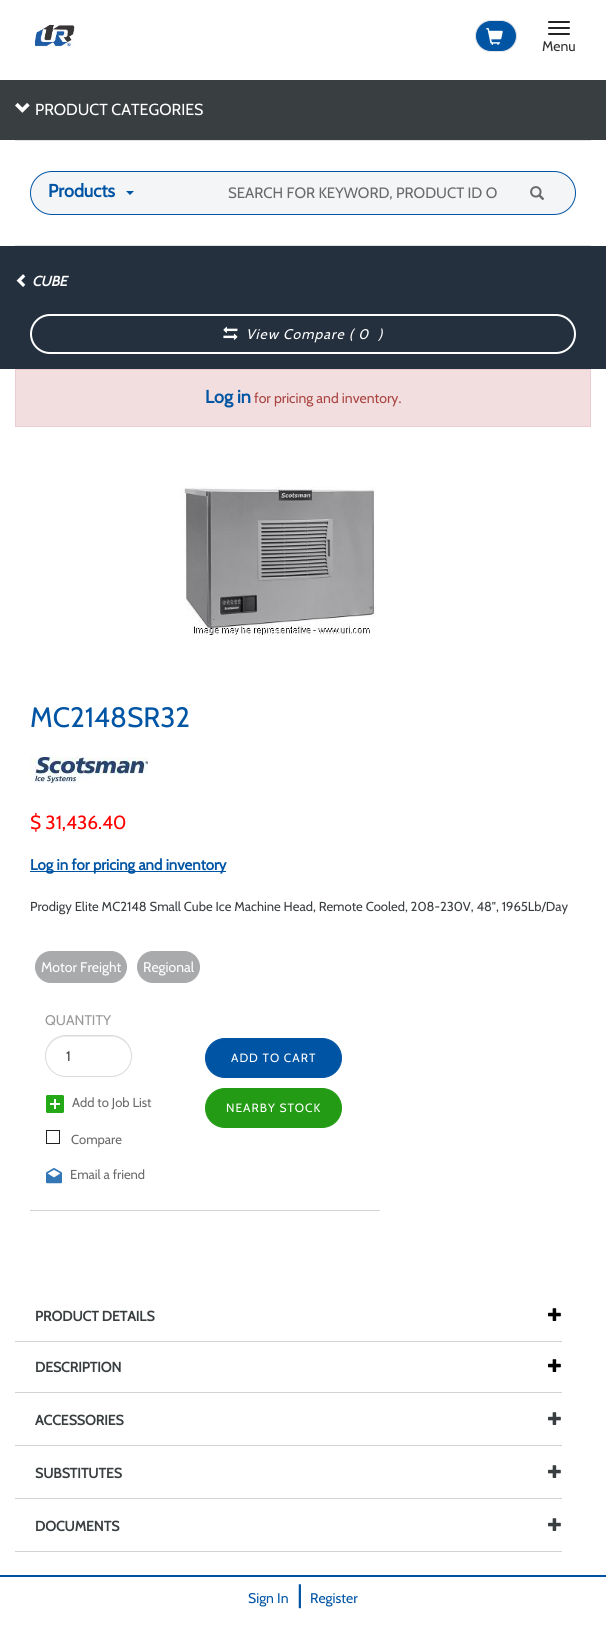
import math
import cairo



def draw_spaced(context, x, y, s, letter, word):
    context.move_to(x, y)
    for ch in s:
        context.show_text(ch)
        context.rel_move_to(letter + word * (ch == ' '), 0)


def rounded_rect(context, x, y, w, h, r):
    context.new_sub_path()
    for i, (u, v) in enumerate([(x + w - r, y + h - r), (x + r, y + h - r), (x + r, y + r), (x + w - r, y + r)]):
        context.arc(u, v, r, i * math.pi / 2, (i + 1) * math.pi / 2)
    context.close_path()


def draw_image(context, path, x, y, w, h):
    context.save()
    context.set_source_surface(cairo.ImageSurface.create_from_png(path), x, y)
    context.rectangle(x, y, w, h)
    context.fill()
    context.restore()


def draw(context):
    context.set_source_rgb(1, 1, 1)
    context.paint()
    draw_image(context, "images/1.png", 35, 25, 40, 22)
    context.set_source_rgb(0, 84 / 255, 164 / 255)
    rounded_rect(context, 475.5, 20.5, 41, 31, 15.5)
    context.fill_preserve()
    context.set_source_rgb(227 / 255, 227 / 255, 227 / 255)
    context.set_line_width(1)
    context.stroke()
    draw_image(context, "images/2.png", 486, 28, 17, 17)
    context.set_source_rgb(34 / 255, 34 / 255, 34 / 255)
    rounded_rect(context, 548, 21, 22, 2, 1)
    context.fill()
    rounded_rect(context, 548, 27, 22, 2, 1)
    context.fill()
    rounded_rect(context, 548, 33, 22, 2, 1)
    context.fill()
    context.set_source_rgb(57 / 255, 62 / 255, 65 / 255)
    context.rectangle(0, 80, 606, 60)
    context.fill()
    draw_image(context, "images/3.png", 15, 102, 15, 11)
    context.set_source_rgb(227 / 255, 227 / 255, 227 / 255)
    context.rectangle(15, 140, 576, 1)
    context.fill()
    context.rectangle(15, 245, 576, 1)
    context.fill()
    context.set_source_rgb(244 / 255, 245 / 255, 247 / 255)
    rounded_rect(context, 30.5, 171.5, 545, 43, 21.5)
    context.fill_preserve()
    context.set_source_rgb(0, 84 / 255, 164 / 255)
    context.stroke()
    context.new_path()
    context.move_to(126, 191)
    context.line_to(134, 191)
    context.line_to(130, 195)
    context.close_path()
    context.fill()
    draw_image(context, "images/4.png", 530, 186, 14, 14)
    context.set_source_rgb(36 / 255, 48 / 255, 62 / 255)
    context.rectangle(0, 246, 606, 123)
    context.fill()
    draw_image(context, "images/5.png", 16, 274, 10, 13)
    rounded_rect(context, 31, 315, 544, 38, 19)
    context.set_source_rgb(1, 1, 1)
    context.set_line_width(2)
    context.stroke()
    draw_image(context, "images/6.png", 223, 326, 15, 14)
    context.set_source_rgb(242 / 255, 222 / 255, 222 / 255)
    context.rectangle(15.5, 369.5, 575, 57)
    context.fill_preserve()
    context.set_source_rgb(235 / 255, 204 / 255, 209 / 255)
    context.set_line_width(1)
    context.stroke()
    draw_image(context, "images/7.png", 180, 487, 196, 148)
    draw_image(context, "images/8.png", 30, 757, 118, 26)
    context.set_source_rgb(0, 84 / 255, 164 / 255)
    context.rectangle(30, 871, 196, 1)
    context.fill()
    context.set_source_rgb(169 / 255, 170 / 255, 172 / 255)
    rounded_rect(context, 35.5, 951.5, 91, 31, 15.5)
    context.fill_preserve()
    context.stroke()
    rounded_rect(context, 137.5, 951.5, 62, 31, 15.5)
    context.fill_preserve()
    context.stroke()
    context.set_source_rgb(236 / 255, 236 / 255, 236 / 255)
    context.new_path()
    context.move_to(66, 1037)
    context.line_to(111, 1037)
    context.curve_to(122, 1037, 131, 1046, 131, 1057)
    context.line_to(131, 1056)
    context.curve_to(131, 1045, 122, 1036, 111, 1036)
    context.line_to(66, 1036)
    context.curve_to(55, 1036, 46, 1045, 46, 1056)
    context.line_to(46, 1057)
    context.curve_to(46, 1046, 55, 1037, 66, 1037)
    context.close_path()
    context.fill()
    rounded_rect(context, 45.5, 1035.5, 86, 41, 20.5)
    context.set_source_rgb(218 / 255, 218 / 255, 218 / 255)
    context.stroke()
    draw_image(context, "images/9.png", 46, 1095, 18, 18)
    context.rectangle(46.5, 1130.5, 13, 13)
    context.set_source_rgb(34 / 255, 34 / 255, 34 / 255)
    context.stroke()
    draw_image(context, "images/10.png", 46, 1168, 16, 16)
    context.set_source_rgb(0, 84 / 255, 164 / 255)
    rounded_rect(context, 205.5, 1038.5, 136, 39, 19.5)
    context.fill_preserve()
    context.stroke()
    context.set_source_rgb(35 / 255, 155 / 255, 20 / 255)
    rounded_rect(context, 205.5, 1088.5, 136, 39, 19.5)
    context.fill_preserve()
    context.stroke()
    context.set_source_rgb(210 / 255, 210 / 255, 210 / 255)
    context.rectangle(30, 1210, 350, 1)
    context.fill()
    context.rectangle(15, 1341, 547, 1)
    context.fill()
    draw_image(context, "images/11.png", 548, 1308, 13, 13)
    context.rectangle(15, 1392, 547, 1)
    context.fill()
    draw_image(context, "images/11.png", 548, 1359, 13, 13)
    context.rectangle(15, 1445, 547, 1)
    context.fill()
    draw_image(context, "images/12.png", 548, 1412, 13, 13)
    context.rectangle(15, 1498, 547, 1)
    context.fill()
    draw_image(context, "images/12.png", 548, 1465, 13, 13)
    context.rectangle(15, 1551, 547, 1)
    context.fill()
    draw_image(context, "images/12.png", 548, 1518, 13, 13)
    context.set_source_rgb(0, 84 / 255, 164 / 255)
    context.rectangle(0, 1575, 606, 2)
    context.fill()
    context.select_font_face("Cabin")
    context.set_font_size(14)
    context.set_source_rgb(48 / 255, 48 / 255, 48 / 255)
    context.move_to(542, 51)
    context.show_text("Menu")
    context.set_font_size(16)
    context.set_source_rgb(1, 1, 1)
    context.move_to(35, 115)
    context.show_text("PRODUCT CATEGORIES")
    context.select_font_face("Cabin", cairo.FontSlant.NORMAL, cairo.FontWeight.BOLD)
    context.set_font_size(18)
    context.set_source_rgb(0, 84 / 255, 164 / 255)
    context.move_to(48, 197)
    context.show_text("Products")
    context.select_font_face("Cabin")
    context.set_font_size(15)
    context.set_source_rgb(106 / 255, 106 / 255, 106 / 255)
    context.move_to(228, 198)
    context.show_text("SEARCH FOR KEYWORD, PRODUCT ID O")
    context.select_font_face("Cabin", cairo.FontSlant.ITALIC, cairo.FontWeight.BOLD)
    context.set_font_size(14)
    context.set_source_rgb(1, 1, 1)
    context.move_to(32, 286)
    context.show_text("CUBE")
    context.select_font_face("Cabin", cairo.FontSlant.ITALIC)
    draw_spaced(context, 246, 339, "View Compare ( 0", 1, 0)
    draw_spaced(context, 378, 339, ")", 1, 0)
    context.select_font_face("Cabin", cairo.FontSlant.NORMAL, cairo.FontWeight.BOLD)
    context.set_font_size(18)
    context.set_source_rgb(0, 84 / 255, 164 / 255)
    context.move_to(205, 403)
    context.show_text("Log in")
    context.select_font_face("Cabin")
    context.set_font_size(14)
    context.set_source_rgb(169 / 255, 68 / 255, 66 / 255)
    context.move_to(254, 403)
    context.show_text("for pricing and inventory.")
    context.set_font_size(28)
    context.set_source_rgb(0, 84 / 255, 164 / 255)
    context.move_to(30, 727)
    context.show_text("MC2148SR32")
    context.set_font_size(19)
    context.set_source_rgb(1, 0, 0)
    context.move_to(30, 829)
    context.show_text("$ 31,436.40")
    context.select_font_face("Cabin", cairo.FontSlant.NORMAL, cairo.FontWeight.BOLD)
    context.set_font_size(15)
    context.set_source_rgb(0, 84 / 255, 164 / 255)
    context.move_to(30, 870)
    context.show_text("Log in for pricing and inventory")
    context.select_font_face("Cabin")
    context.set_font_size(13)
    context.set_source_rgb(57 / 255, 62 / 255, 65 / 255)
    context.move_to(30, 911)
    context.show_text("Prodigy Elite MC2148 Small Cube Ice Machine Head, Remote Cooled, 208-230V, 48\", 1965Lb/Day")
    context.set_font_size(14)
    context.set_source_rgb(1, 1, 1)
    context.move_to(41, 972)
    context.show_text("Motor Freight")
    context.move_to(143, 972)
    context.show_text("Regional")
    context.set_source_rgb(153 / 255, 153 / 255, 153 / 255)
    context.move_to(45, 1025)
    context.show_text("QUANTITY")
    context.set_source_rgb(57 / 255, 62 / 255, 65 / 255)
    context.move_to(66, 1061)
    context.show_text("1")
    context.set_font_size(13)
    context.set_source_rgb(106 / 255, 106 / 255, 106 / 255)
    context.move_to(72, 1107)
    context.show_text("Add to Job List")
    context.move_to(71, 1144)
    context.show_text("Compare")
    context.move_to(70, 1179)
    context.show_text("Email a friend")
    context.set_font_size(12)
    context.set_source_rgb(1, 1, 1)
    draw_spaced(context, 231, 1062, "ADD TO CART", 1, 0)
    draw_spaced(context, 226, 1112, "NEARBY STOCK", 1, 0)
    context.select_font_face("Cabin", cairo.FontSlant.NORMAL, cairo.FontWeight.BOLD)
    context.set_font_size(14)
    context.set_source_rgb(57 / 255, 62 / 255, 65 / 255)
    context.move_to(35, 1321)
    context.show_text("PRODUCT DETAILS")
    context.move_to(35, 1372)
    context.show_text("DESCRIPTION")
    context.move_to(35, 1425)
    context.show_text("ACCESSORIES")
    context.move_to(35, 1478)
    context.show_text("SUBSTITUTES")
    context.move_to(35, 1531)
    context.show_text("DOCUMENTS")
    context.select_font_face("Cabin")
    context.set_source_rgb(0, 84 / 255, 164 / 255)
    context.move_to(248, 1603)
    context.show_text("Sign In")
    context.set_font_size(25)
    context.move_to(297, 1603)
    context.show_text("|")
    context.set_font_size(14)
    context.move_to(310, 1603)
    context.show_text("Register")


surface = cairo.ImageSurface(cairo.Format.RGB24, 606, 1640)
context = cairo.Context(surface)
options = cairo.FontOptions()
options.set_hint_metrics(cairo.HintMetrics.OFF)
options.set_hint_style(cairo.HintStyle.NONE)
context.set_font_options(options)
context.set_miter_limit(4)
draw(context)
surface.write_to_png("out.png")
